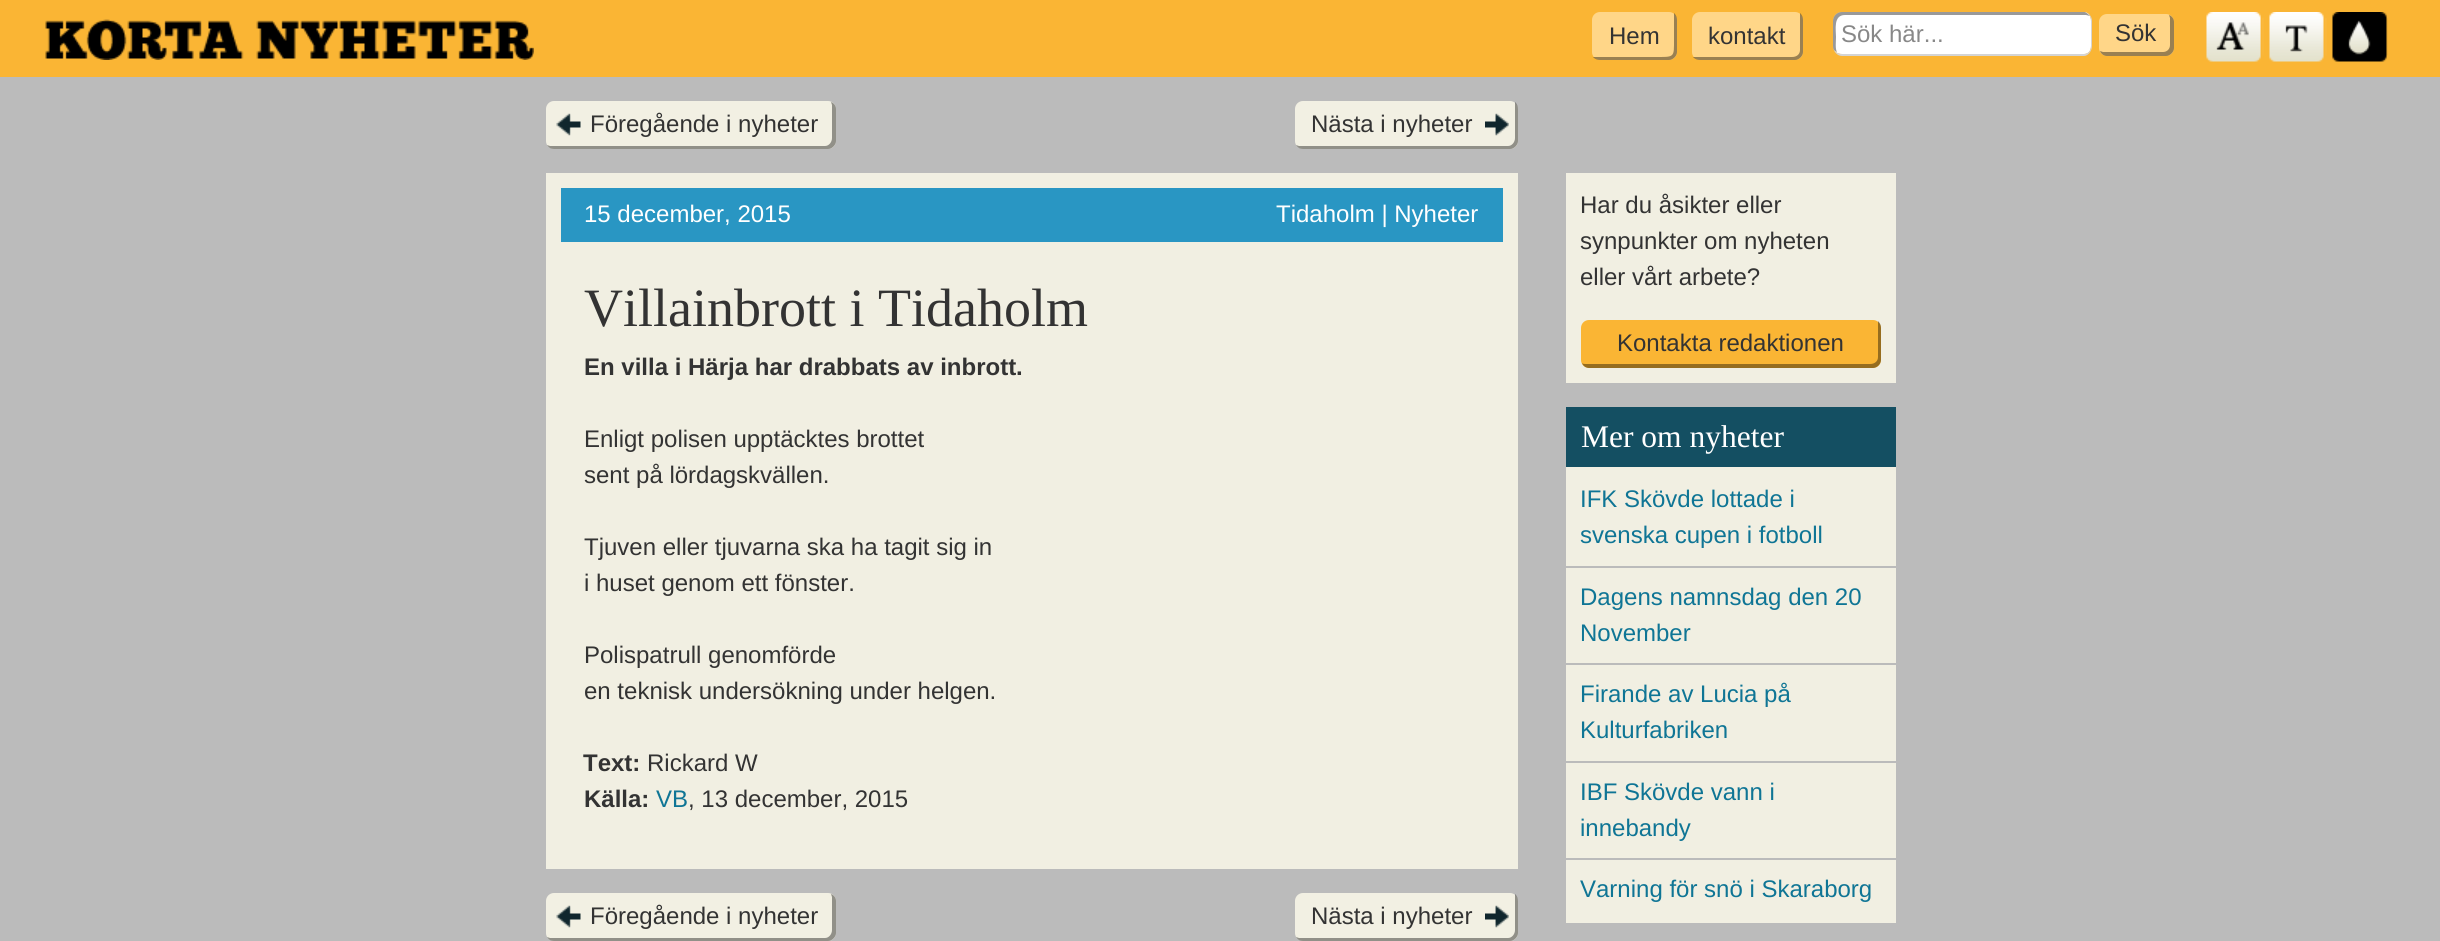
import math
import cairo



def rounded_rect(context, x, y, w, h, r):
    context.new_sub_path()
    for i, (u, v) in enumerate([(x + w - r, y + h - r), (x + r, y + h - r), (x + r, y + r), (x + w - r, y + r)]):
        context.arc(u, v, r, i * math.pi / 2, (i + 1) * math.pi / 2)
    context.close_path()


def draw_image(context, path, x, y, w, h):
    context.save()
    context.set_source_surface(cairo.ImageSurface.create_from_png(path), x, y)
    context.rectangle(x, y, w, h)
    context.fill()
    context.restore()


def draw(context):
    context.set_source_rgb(187 / 255, 187 / 255, 187 / 255)
    context.paint()
    context.set_source_rgb(250 / 255, 181 / 255, 52 / 255)
    context.rectangle(0, 0, 2440, 77)
    context.fill()
    draw_image(context, "images/1.png", 45, 19, 489, 41)
    context.set_source_rgb(1, 214 / 255, 136 / 255)
    rounded_rect(context, 1592, 12, 85, 48, 8)
    context.fill()
    context.set_source_rgba(0, 0, 0, 0.4)
    context.new_path()
    context.move_to(1593, 57)
    context.curve_to(1595, 59, 1597, 60, 1600, 60)
    context.line_to(1669, 60)
    context.curve_to(1673, 60, 1677, 56, 1677, 52)
    context.line_to(1677, 20)
    context.curve_to(1677, 17, 1676, 15, 1674, 13)
    context.line_to(1674, 39)
    context.curve_to(1674, 58, 1675, 57, 1654, 57)
    context.close_path()
    context.fill()
    context.set_source_rgb(1, 214 / 255, 136 / 255)
    rounded_rect(context, 1692, 12, 111, 48, 8)
    context.fill()
    context.set_source_rgba(0, 0, 0, 0.4)
    context.new_path()
    context.move_to(1693, 57)
    context.curve_to(1695, 59, 1697, 60, 1700, 60)
    context.line_to(1795, 60)
    context.curve_to(1799, 60, 1803, 56, 1803, 52)
    context.line_to(1803, 20)
    context.curve_to(1803, 17, 1802, 15, 1800, 13)
    context.line_to(1800, 16)
    context.line_to(1800, 50)
    context.curve_to(1800, 54, 1797, 57, 1792, 57)
    context.line_to(1696, 57)
    context.close_path()
    context.fill()
    context.set_source_rgb(1, 1, 1)
    context.new_path()
    context.move_to(1842, 12)
    context.line_to(2084, 12)
    context.curve_to(2088, 12, 2091, 16, 2091, 21)
    context.line_to(2091, 46)
    context.curve_to(2091, 51, 2088, 54, 2084, 54)
    context.line_to(1842, 54)
    context.curve_to(1837, 54, 1833, 51, 1833, 46)
    context.line_to(1833, 21)
    context.curve_to(1833, 16, 1837, 12, 1842, 12)
    context.close_path()
    context.fill()
    context.set_source_rgba(0, 0, 0, 0.4)
    context.new_path()
    context.move_to(1845, 15)
    context.line_to(2086, 15)
    context.line_to(2090, 16)
    context.curve_to(2088, 14, 2086, 12, 2084, 12)
    context.line_to(1842, 12)
    context.curve_to(1837, 12, 1833, 16, 1833, 21)
    context.line_to(1833, 46)
    context.curve_to(1833, 49, 1834, 51, 1837, 52)
    context.curve_to(1835, 49, 1836, 41, 1836, 37)
    context.curve_to(1836, 30, 1833, 15, 1845, 15)
    context.close_path()
    context.fill()
    context.set_source_rgb(212 / 255, 212 / 255, 212 / 255)
    context.set_fill_rule(cairo.FillRule.EVEN_ODD)
    context.new_path()
    context.move_to(1842, 12)
    context.line_to(2084, 12)
    context.curve_to(2088, 12, 2092, 16, 2092, 21)
    context.line_to(2092, 46)
    context.curve_to(2092, 51, 2088, 56, 2084, 56)
    context.line_to(1842, 56)
    context.curve_to(1837, 56, 1833, 51, 1833, 46)
    context.line_to(1833, 21)
    context.curve_to(1833, 16, 1837, 12, 1842, 12)
    context.close_path()
    context.move_to(1842, 12)
    context.line_to(2084, 12)
    context.curve_to(2088, 12, 2091, 16, 2091, 21)
    context.line_to(2091, 46)
    context.curve_to(2091, 51, 2088, 54, 2084, 54)
    context.line_to(1842, 54)
    context.curve_to(1837, 54, 1833, 51, 1833, 46)
    context.line_to(1833, 21)
    context.curve_to(1833, 16, 1837, 12, 1842, 12)
    context.close_path()
    context.fill()
    context.set_source_rgb(1, 214 / 255, 136 / 255)
    rounded_rect(context, 2099, 14, 75, 42, 8)
    context.fill()
    context.set_source_rgba(0, 0, 0, 0.4)
    context.set_fill_rule(cairo.FillRule.WINDING)
    context.new_path()
    context.move_to(2100, 51)
    context.curve_to(2101, 54, 2104, 56, 2107, 56)
    context.line_to(2166, 56)
    context.curve_to(2170, 56, 2174, 52, 2174, 48)
    context.line_to(2174, 22)
    context.curve_to(2174, 19, 2172, 16, 2169, 15)
    context.line_to(2170, 18)
    context.line_to(2170, 45)
    context.curve_to(2170, 49, 2167, 52, 2163, 52)
    context.line_to(2103, 52)
    context.close_path()
    context.fill()
    draw_image(context, "images/2.png", 2206, 12, 58, 50)
    draw_image(context, "images/3.png", 2269, 12, 58, 50)
    draw_image(context, "images/4.png", 2332, 12, 56, 50)
    context.set_source_rgb(242 / 255, 240 / 255, 227 / 255)
    rounded_rect(context, 546, 101, 290, 48, 8)
    context.fill()
    draw_image(context, "images/5.png", 556, 113, 25, 23)
    context.set_source_rgba(0, 0, 0, 0.4)
    context.new_path()
    context.move_to(547, 145)
    context.curve_to(549, 148, 551, 149, 554, 149)
    context.line_to(828, 149)
    context.curve_to(832, 149, 836, 145, 836, 141)
    context.line_to(836, 109)
    context.curve_to(836, 106, 834, 103, 831, 102)
    context.line_to(832, 105)
    context.line_to(832, 138)
    context.curve_to(832, 142, 829, 146, 825, 146)
    context.line_to(550, 146)
    context.close_path()
    context.fill()
    context.set_source_rgb(242 / 255, 240 / 255, 227 / 255)
    rounded_rect(context, 1295, 101, 223, 48, 8)
    context.fill()
    draw_image(context, "images/6.png", 1485, 113, 24, 23)
    context.set_source_rgba(0, 0, 0, 0.4)
    context.new_path()
    context.move_to(1296, 145)
    context.curve_to(1298, 148, 1300, 149, 1303, 149)
    context.line_to(1510, 149)
    context.curve_to(1514, 149, 1518, 145, 1518, 141)
    context.line_to(1518, 109)
    context.curve_to(1518, 106, 1517, 104, 1515, 102)
    context.line_to(1515, 105)
    context.line_to(1515, 138)
    context.curve_to(1515, 142, 1512, 146, 1508, 146)
    context.line_to(1299, 146)
    context.close_path()
    context.fill()
    context.set_source_rgb(241 / 255, 239 / 255, 226 / 255)
    context.rectangle(546, 173, 972, 696)
    context.fill()
    context.set_source_rgb(41 / 255, 150 / 255, 195 / 255)
    context.rectangle(561, 188, 942, 54)
    context.fill()
    context.set_source_rgb(242 / 255, 240 / 255, 227 / 255)
    rounded_rect(context, 546, 893, 290, 48, 8)
    context.fill()
    draw_image(context, "images/5.png", 556, 905, 25, 23)
    context.set_source_rgba(0, 0, 0, 0.4)
    context.new_path()
    context.move_to(547, 937)
    context.curve_to(549, 940, 551, 941, 554, 941)
    context.line_to(828, 941)
    context.curve_to(832, 941, 836, 937, 836, 933)
    context.line_to(836, 901)
    context.curve_to(836, 898, 834, 895, 831, 894)
    context.line_to(832, 897)
    context.line_to(832, 930)
    context.curve_to(832, 934, 829, 938, 825, 938)
    context.line_to(550, 938)
    context.close_path()
    context.fill()
    context.set_source_rgb(242 / 255, 240 / 255, 227 / 255)
    rounded_rect(context, 1295, 893, 223, 48, 8)
    context.fill()
    draw_image(context, "images/6.png", 1485, 905, 24, 23)
    context.set_source_rgba(0, 0, 0, 0.4)
    context.new_path()
    context.move_to(1296, 937)
    context.curve_to(1298, 940, 1300, 941, 1303, 941)
    context.line_to(1510, 941)
    context.curve_to(1514, 941, 1518, 937, 1518, 933)
    context.line_to(1518, 901)
    context.curve_to(1518, 898, 1517, 896, 1515, 894)
    context.line_to(1515, 897)
    context.line_to(1515, 930)
    context.curve_to(1515, 934, 1512, 938, 1508, 938)
    context.line_to(1299, 938)
    context.close_path()
    context.fill()
    context.set_source_rgb(241 / 255, 239 / 255, 226 / 255)
    context.rectangle(1566, 173, 330, 210)
    context.fill()
    context.set_source_rgb(250 / 255, 181 / 255, 52 / 255)
    rounded_rect(context, 1581, 320, 300, 48, 8)
    context.fill()
    context.set_source_rgba(0, 0, 0, 0.4)
    context.new_path()
    context.move_to(1582, 363)
    context.curve_to(1583, 366, 1586, 368, 1589, 368)
    context.line_to(1873, 368)
    context.curve_to(1877, 368, 1881, 364, 1881, 360)
    context.line_to(1881, 328)
    context.curve_to(1881, 325, 1880, 323, 1878, 321)
    context.line_to(1878, 324)
    context.line_to(1878, 357)
    context.curve_to(1878, 361, 1875, 364, 1870, 364)
    context.line_to(1586, 364)
    context.curve_to(1584, 364, 1583, 364, 1582, 363)
    context.close_path()
    context.fill()
    context.set_source_rgb(241 / 255, 239 / 255, 226 / 255)
    context.rectangle(1566, 467, 330, 456)
    context.fill()
    context.set_source_rgb(20 / 255, 79 / 255, 98 / 255)
    context.rectangle(1566, 407, 330, 60)
    context.fill()
    context.set_source_rgb(187 / 255, 187 / 255, 187 / 255)
    context.rectangle(1566, 566, 330, 2)
    context.fill()
    context.rectangle(1566, 663, 330, 2)
    context.fill()
    context.rectangle(1566, 761, 330, 2)
    context.fill()
    context.rectangle(1566, 858, 330, 2)
    context.fill()
    context.select_font_face("Liberation Sans")
    context.set_font_size(24)
    context.set_source_rgb(51 / 255, 51 / 255, 51 / 255)
    context.move_to(1609, 44)
    context.show_text("Hem")
    context.move_to(1708, 44)
    context.show_text("kontakt")
    context.set_source_rgb(136 / 255, 136 / 255, 136 / 255)
    context.move_to(1841, 42)
    context.show_text("Sök här...")
    context.set_source_rgb(51 / 255, 51 / 255, 51 / 255)
    context.move_to(2115, 41)
    context.show_text("Sök")
    context.move_to(590, 132)
    context.show_text("Föregående i nyheter")
    context.move_to(1311, 132)
    context.show_text("Nästa i nyheter")
    context.set_source_rgb(1, 1, 1)
    context.move_to(584, 222)
    context.show_text("15 december, 2015")
    context.move_to(1276, 222)
    context.show_text("Tidaholm | Nyheter")
    context.select_font_face("Liberation Serif")
    context.set_font_size(54)
    context.set_source_rgb(51 / 255, 51 / 255, 51 / 255)
    context.move_to(584, 326)
    context.show_text("Villainbrott i Tidaholm")
    context.select_font_face("Liberation Sans", cairo.FontSlant.NORMAL, cairo.FontWeight.BOLD)
    context.set_font_size(24)
    context.move_to(584, 375)
    context.show_text("En villa i Härja har drabbats av inbrott.")
    context.select_font_face("Liberation Sans")
    context.move_to(584, 447)
    context.show_text("Enligt polisen upptäcktes brottet")
    context.move_to(584, 483)
    context.show_text("sent på lördagskvällen.")
    context.move_to(584, 555)
    context.show_text("Tjuven eller tjuvarna ska ha tagit sig in")
    context.move_to(584, 591)
    context.show_text("i huset genom ett fönster.")
    context.move_to(584, 663)
    context.show_text("Polispatrull genomförde")
    context.move_to(584, 699)
    context.show_text("en teknisk undersökning under helgen.")
    context.select_font_face("Liberation Sans", cairo.FontSlant.NORMAL, cairo.FontWeight.BOLD)
    context.move_to(583, 771)
    context.show_text("Text:")
    context.select_font_face("Liberation Sans")
    context.move_to(647, 771)
    context.show_text("Rickard W")
    context.select_font_face("Liberation Sans", cairo.FontSlant.NORMAL, cairo.FontWeight.BOLD)
    context.move_to(584, 807)
    context.show_text("Källa:")
    context.select_font_face("Liberation Sans")
    context.set_source_rgb(15 / 255, 117 / 255, 149 / 255)
    context.move_to(656, 807)
    context.show_text("VB")
    context.set_source_rgb(51 / 255, 51 / 255, 51 / 255)
    context.move_to(688, 807)
    context.show_text(", 13 december, 2015")
    context.move_to(590, 924)
    context.show_text("Föregående i nyheter")
    context.move_to(1311, 924)
    context.show_text("Nästa i nyheter")
    context.move_to(1580, 213)
    context.show_text("Har du åsikter eller")
    context.move_to(1580, 249)
    context.show_text("synpunkter om nyheten")
    context.move_to(1580, 285)
    context.show_text("eller vårt arbete?")
    context.move_to(1617, 351)
    context.show_text("Kontakta redaktionen")
    context.select_font_face("Liberation Serif")
    context.set_font_size(31.5)
    context.set_source_rgb(1, 1, 1)
    context.move_to(1581, 447)
    context.show_text("Mer om nyheter")
    context.select_font_face("Liberation Sans")
    context.set_font_size(24)
    context.set_source_rgb(15 / 255, 117 / 255, 149 / 255)
    context.move_to(1580, 507)
    context.show_text("IFK Skövde lottade i")
    context.move_to(1580, 543)
    context.show_text("svenska cupen i fotboll")
    context.move_to(1580, 605)
    context.show_text("Dagens namnsdag den 20")
    context.move_to(1580, 641)
    context.show_text("November")
    context.move_to(1580, 702)
    context.show_text("Firande av Lucia på")
    context.move_to(1580, 738)
    context.show_text("Kulturfabriken")
    context.move_to(1580, 800)
    context.show_text("IBF Skövde vann i")
    context.move_to(1580, 836)
    context.show_text("innebandy")
    context.move_to(1580, 897)
    context.show_text("Varning för snö i Skaraborg")


surface = cairo.ImageSurface(cairo.Format.RGB24, 2440, 941)
context = cairo.Context(surface)
options = cairo.FontOptions()
options.set_hint_metrics(cairo.HintMetrics.OFF)
options.set_hint_style(cairo.HintStyle.NONE)
context.set_font_options(options)
context.set_miter_limit(4)
draw(context)
surface.write_to_png("out.png")
